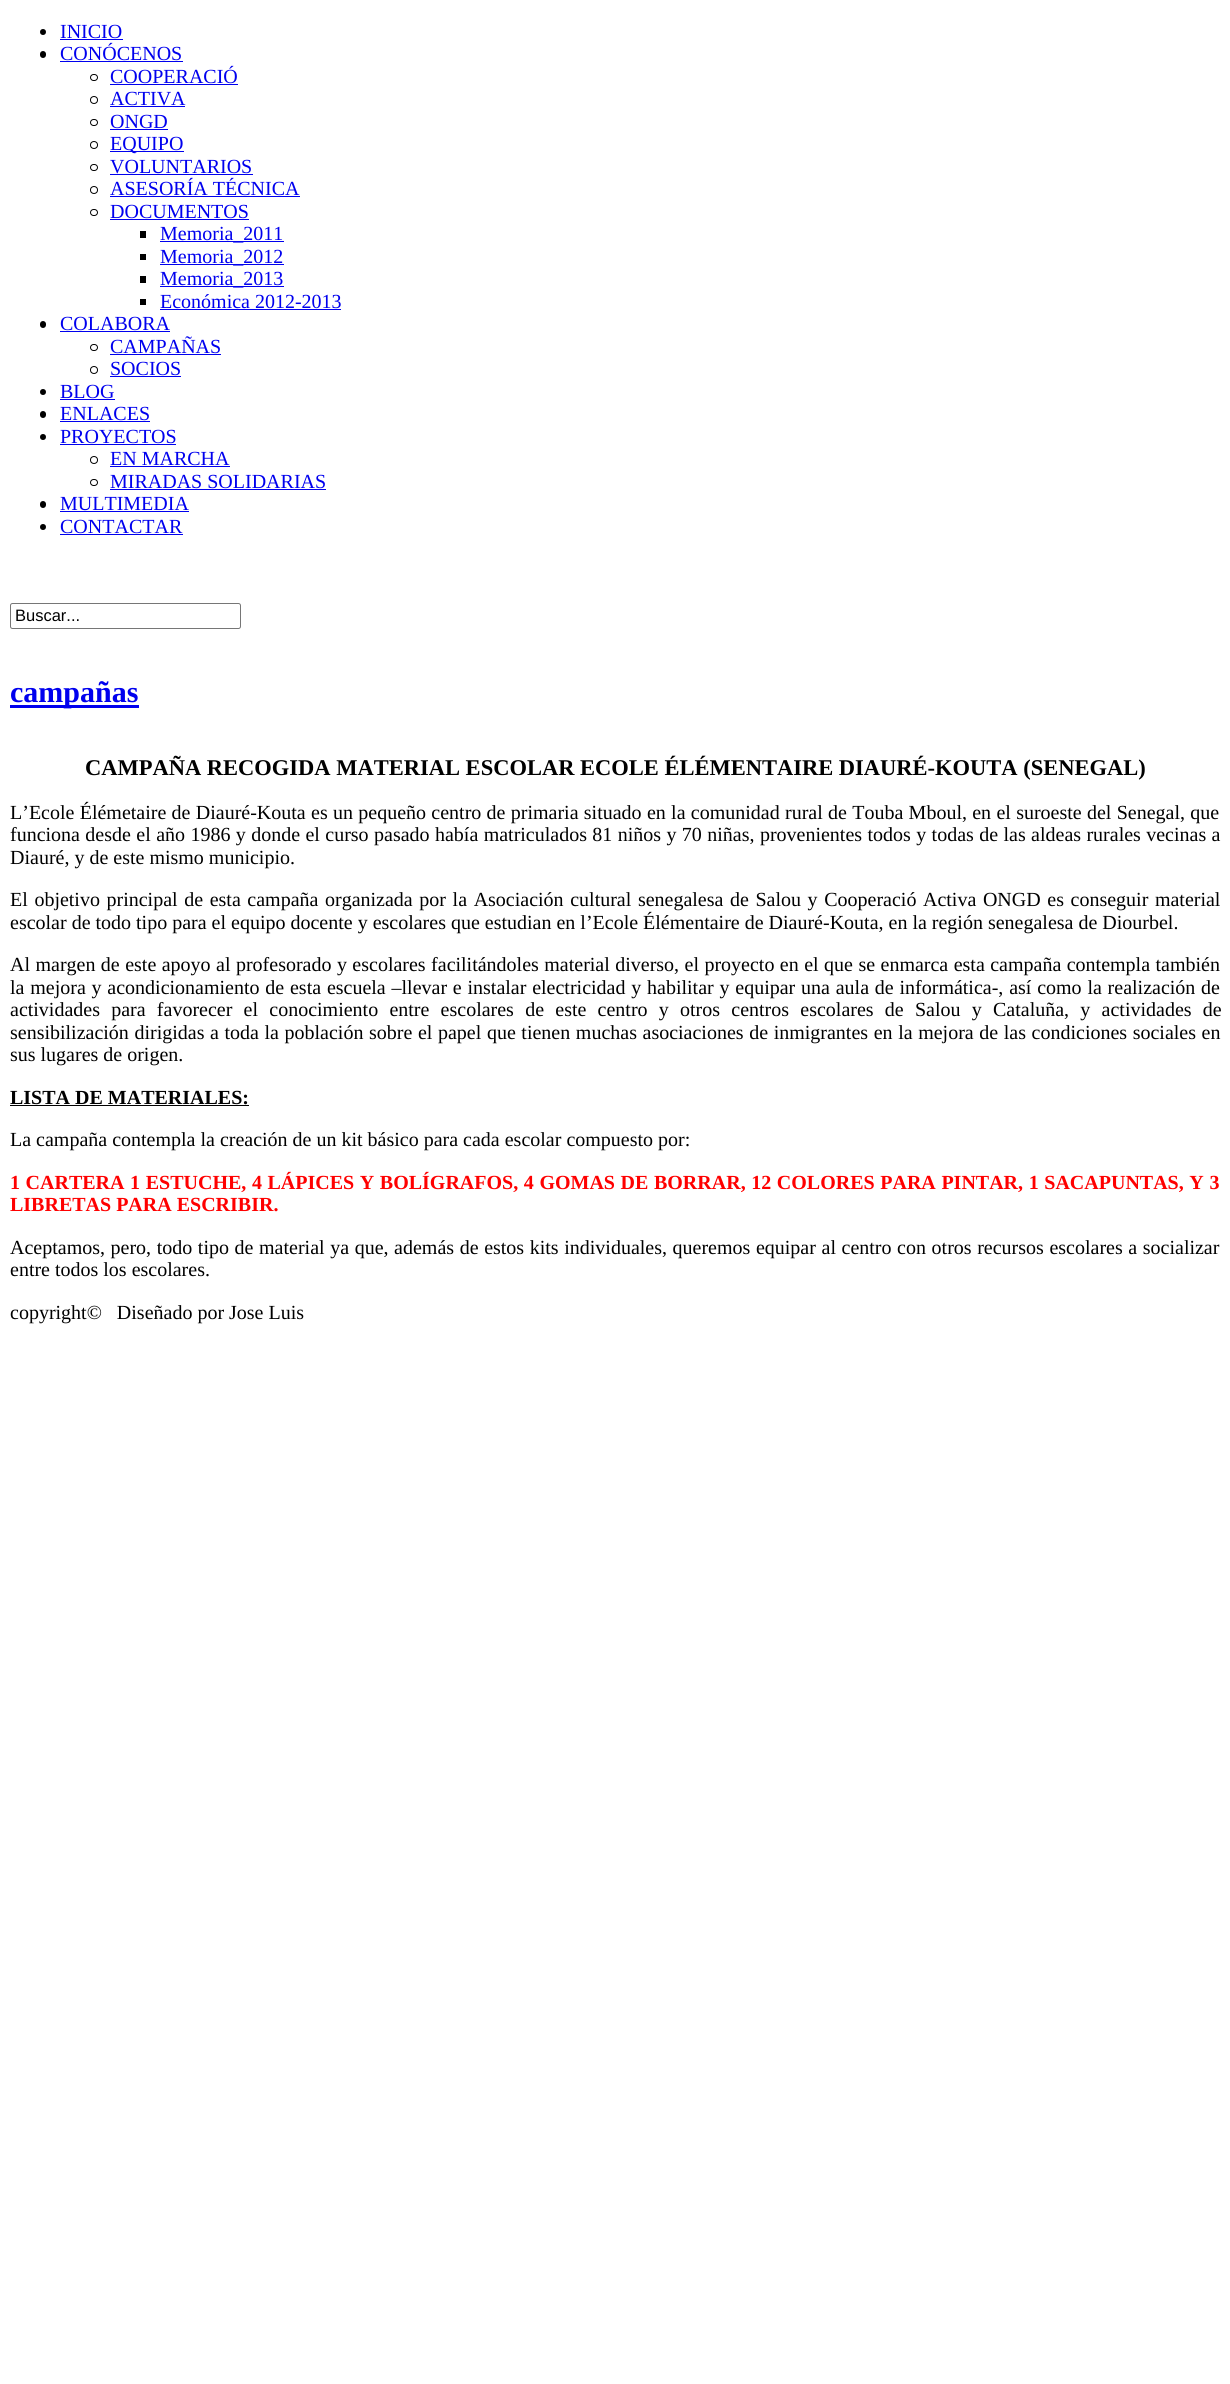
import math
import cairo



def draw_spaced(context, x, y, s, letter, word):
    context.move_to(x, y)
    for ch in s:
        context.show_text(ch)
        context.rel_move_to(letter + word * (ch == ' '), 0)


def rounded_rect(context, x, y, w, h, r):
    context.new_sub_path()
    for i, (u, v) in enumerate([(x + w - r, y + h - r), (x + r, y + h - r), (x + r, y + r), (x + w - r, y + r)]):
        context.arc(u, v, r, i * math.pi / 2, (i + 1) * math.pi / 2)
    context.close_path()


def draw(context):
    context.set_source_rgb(1, 1, 1)
    context.paint()
    context.set_source_rgb(0, 0, 0)
    context.arc(43, 32, 3, 0, 2 * math.pi)
    context.fill()
    context.set_source_rgb(0, 0, 238 / 255)
    context.rectangle(60, 39, 63, 1)
    context.fill()
    context.set_source_rgb(0, 0, 0)
    rounded_rect(context, 40, 51, 6, 7, 3)
    context.fill()
    context.set_source_rgb(0, 0, 238 / 255)
    context.rectangle(60, 61, 123, 1)
    context.fill()
    rounded_rect(context, 90.5, 74.5, 7, 6, 3)
    context.set_source_rgb(0, 0, 0)
    context.set_line_width(1)
    context.stroke()
    context.set_source_rgb(0, 0, 238 / 255)
    context.rectangle(110, 84, 128, 1)
    context.fill()
    context.arc(94, 100, 3.5, 0, 2 * math.pi)
    context.set_source_rgb(0, 0, 0)
    context.stroke()
    context.set_source_rgb(0, 0, 238 / 255)
    context.rectangle(110, 106, 75, 1)
    context.fill()
    rounded_rect(context, 90.5, 119.5, 7, 6, 3)
    context.set_source_rgb(0, 0, 0)
    context.stroke()
    context.set_source_rgb(0, 0, 238 / 255)
    context.rectangle(110, 129, 58, 1)
    context.fill()
    context.arc(94, 145, 3.5, 0, 2 * math.pi)
    context.set_source_rgb(0, 0, 0)
    context.stroke()
    context.set_source_rgb(0, 0, 238 / 255)
    context.rectangle(110, 151, 74, 1)
    context.fill()
    rounded_rect(context, 90.5, 164.5, 7, 6, 3)
    context.set_source_rgb(0, 0, 0)
    context.stroke()
    context.set_source_rgb(0, 0, 238 / 255)
    context.rectangle(110, 174, 143, 1)
    context.fill()
    context.arc(94, 190, 3.5, 0, 2 * math.pi)
    context.set_source_rgb(0, 0, 0)
    context.stroke()
    context.set_source_rgb(0, 0, 238 / 255)
    context.rectangle(110, 196, 190, 1)
    context.fill()
    rounded_rect(context, 90.5, 209.5, 7, 6, 3)
    context.set_source_rgb(0, 0, 0)
    context.stroke()
    context.set_source_rgb(0, 0, 238 / 255)
    context.rectangle(110, 219, 139, 1)
    context.fill()
    context.set_source_rgb(0, 0, 0)
    context.rectangle(140, 231, 6, 7)
    context.fill()
    context.set_source_rgb(0, 0, 238 / 255)
    context.rectangle(160, 241, 124, 1)
    context.fill()
    context.set_source_rgb(0, 0, 0)
    context.rectangle(140, 254, 6, 6)
    context.fill()
    context.set_source_rgb(0, 0, 238 / 255)
    context.rectangle(160, 264, 124, 1)
    context.fill()
    context.set_source_rgb(0, 0, 0)
    context.rectangle(140, 276, 6, 7)
    context.fill()
    context.set_source_rgb(0, 0, 238 / 255)
    context.rectangle(160, 286, 124, 1)
    context.fill()
    context.set_source_rgb(0, 0, 0)
    context.rectangle(140, 299, 6, 6)
    context.fill()
    context.set_source_rgb(0, 0, 238 / 255)
    context.rectangle(160, 309, 181, 1)
    context.fill()
    context.set_source_rgb(0, 0, 0)
    rounded_rect(context, 40, 321, 6, 7, 3)
    context.fill()
    context.set_source_rgb(0, 0, 238 / 255)
    context.rectangle(60, 331, 110, 1)
    context.fill()
    rounded_rect(context, 90.5, 344.5, 7, 6, 3)
    context.set_source_rgb(0, 0, 0)
    context.stroke()
    context.set_source_rgb(0, 0, 238 / 255)
    context.rectangle(110, 354, 111, 1)
    context.fill()
    context.arc(94, 370, 3.5, 0, 2 * math.pi)
    context.set_source_rgb(0, 0, 0)
    context.stroke()
    context.set_source_rgb(0, 0, 238 / 255)
    context.rectangle(110, 376, 71, 1)
    context.fill()
    context.set_source_rgb(0, 0, 0)
    context.arc(43, 392, 3, 0, 2 * math.pi)
    context.fill()
    context.set_source_rgb(0, 0, 238 / 255)
    context.rectangle(60, 399, 55, 1)
    context.fill()
    context.set_source_rgb(0, 0, 0)
    rounded_rect(context, 40, 411, 6, 7, 3)
    context.fill()
    context.set_source_rgb(0, 0, 238 / 255)
    context.rectangle(60, 421, 90, 1)
    context.fill()
    context.set_source_rgb(0, 0, 0)
    context.arc(43, 437, 3, 0, 2 * math.pi)
    context.fill()
    context.set_source_rgb(0, 0, 238 / 255)
    context.rectangle(60, 444, 116, 1)
    context.fill()
    context.arc(94, 460, 3.5, 0, 2 * math.pi)
    context.set_source_rgb(0, 0, 0)
    context.stroke()
    context.set_source_rgb(0, 0, 238 / 255)
    context.rectangle(110, 466, 120, 1)
    context.fill()
    rounded_rect(context, 90.5, 479.5, 7, 6, 3)
    context.set_source_rgb(0, 0, 0)
    context.stroke()
    context.set_source_rgb(0, 0, 238 / 255)
    context.rectangle(110, 489, 216, 1)
    context.fill()
    context.set_source_rgb(0, 0, 0)
    rounded_rect(context, 40, 501, 6, 7, 3)
    context.fill()
    context.set_source_rgb(0, 0, 238 / 255)
    context.rectangle(60, 511, 129, 1)
    context.fill()
    context.set_source_rgb(0, 0, 0)
    context.arc(43, 527, 3, 0, 2 * math.pi)
    context.fill()
    context.set_source_rgb(0, 0, 238 / 255)
    context.rectangle(60, 534, 123, 1)
    context.fill()
    rounded_rect(context, 10.5, 603.5, 230, 25, 2)
    context.set_source_rgb(118 / 255, 118 / 255, 118 / 255)
    context.stroke()
    context.set_source_rgb(0, 0, 238 / 255)
    context.rectangle(10, 705, 129, 3)
    context.fill()
    context.set_source_rgb(0, 0, 0)
    context.rectangle(10, 1105, 239, 1)
    context.fill()
    context.select_font_face("Liberation Serif")
    context.set_font_size(20)
    context.set_source_rgb(0, 0, 238 / 255)
    context.move_to(60, 38)
    context.show_text("INICIO")
    context.move_to(60, 60)
    context.show_text("CONÓCENOS")
    context.move_to(110, 83)
    context.show_text("COOPERACIÓ")
    context.move_to(110, 105)
    context.show_text("ACTIVA")
    context.move_to(110, 128)
    context.show_text("ONGD")
    context.move_to(110, 150)
    context.show_text("EQUIPO")
    context.move_to(110, 173)
    context.show_text("VOLUNTARIOS")
    context.move_to(110, 195)
    context.show_text("ASESORÍA TÉCNICA")
    context.move_to(110, 218)
    context.show_text("DOCUMENTOS")
    context.move_to(160, 240)
    context.show_text("Memoria_2011")
    context.move_to(160, 263)
    context.show_text("Memoria_2012")
    context.move_to(160, 285)
    context.show_text("Memoria_2013")
    context.move_to(160, 308)
    context.show_text("Económica 2012-2013")
    context.move_to(60, 330)
    context.show_text("COLABORA")
    context.move_to(110, 353)
    context.show_text("CAMPAÑAS")
    context.move_to(110, 375)
    context.show_text("SOCIOS")
    context.move_to(60, 398)
    context.show_text("BLOG")
    context.move_to(60, 420)
    context.show_text("ENLACES")
    context.move_to(60, 443)
    context.show_text("PROYECTOS")
    context.move_to(110, 465)
    context.show_text("EN MARCHA")
    context.move_to(110, 488)
    context.show_text("MIRADAS SOLIDARIAS")
    context.move_to(60, 510)
    context.show_text("MULTIMEDIA")
    context.move_to(60, 533)
    context.show_text("CONTACTAR")
    context.select_font_face("Liberation Sans")
    context.set_font_size(16.5)
    context.set_source_rgb(0, 0, 0)
    context.move_to(15, 621)
    context.show_text("Buscar...")
    context.select_font_face("Liberation Serif", cairo.FontSlant.NORMAL, cairo.FontWeight.BOLD)
    context.set_font_size(30)
    context.set_source_rgb(0, 0, 238 / 255)
    context.move_to(10, 702)
    context.show_text("campañas")
    context.set_font_size(22.5)
    context.set_source_rgb(0, 0, 0)
    context.move_to(85, 775)
    context.show_text("CAMPAÑA RECOGIDA MATERIAL ESCOLAR ECOLE ÉLÉMENTAIRE DIAURÉ-KOUTA (SENEGAL)")
    context.select_font_face("Liberation Serif")
    context.set_font_size(20)
    draw_spaced(context, 10, 819, "L’Ecole Élémetaire de Diauré-Kouta es un pequeño centro de primaria situado en la comunidad rural de Touba Mboul, en el suroeste del Senegal, que", 0, 0.3)
    draw_spaced(context, 10, 841, "funciona desde el año 1986 y donde el curso pasado había matriculados 81 niños y 70 niñas, provenientes todos y todas de las aldeas rurales vecinas a", 0, 0.4)
    context.move_to(10, 864)
    context.show_text("Diauré, y de este mismo municipio.")
    draw_spaced(context, 10, 906, "El objetivo principal de esta campaña organizada por la Asociación cultural senegalesa de Salou y Cooperació Activa ONGD es conseguir material", 0, 1.6)
    context.move_to(10, 929)
    context.show_text("escolar de todo tipo para el equipo docente y escolares que estudian en l’Ecole Élémentaire de Diauré-Kouta, en la región senegalesa de Diourbel.")
    draw_spaced(context, 10, 971, "Al margen de este apoyo al profesorado y escolares facilitándoles material diverso, el proyecto en el que se enmarca esta campaña contempla también", 0, 0.45)
    draw_spaced(context, 10, 994, "la mejora y acondicionamiento de esta escuela –llevar e instalar electricidad y habilitar y equipar una aula de informática-, así como la realización de", 0, 0.8)
    draw_spaced(context, 10, 1016, "actividades para favorecer el conocimiento entre escolares de este centro y otros centros escolares de Salou y Cataluña, y actividades de", 0, 6.25)
    draw_spaced(context, 10, 1039, "sensibilización dirigidas a toda la población sobre el papel que tienen muchas asociaciones de inmigrantes en la mejora de las condiciones sociales en", 0, 0.6)
    context.move_to(10, 1061)
    context.show_text("sus lugares de origen.")
    context.select_font_face("Liberation Serif", cairo.FontSlant.NORMAL, cairo.FontWeight.BOLD)
    context.move_to(10, 1104)
    context.show_text("LISTA DE MATERIALES:")
    context.select_font_face("Liberation Serif")
    context.move_to(10, 1146)
    context.show_text("La campaña contempla la creación de un kit básico para cada escolar compuesto por:")
    context.select_font_face("Liberation Serif", cairo.FontSlant.NORMAL, cairo.FontWeight.BOLD)
    context.set_source_rgb(1, 0, 0)
    draw_spaced(context, 10, 1189, "1 CARTERA 1 ESTUCHE, 4 LÁPICES Y BOLÍGRAFOS, 4 GOMAS DE BORRAR, 12 COLORES PARA PINTAR, 1 SACAPUNTAS, Y 3", 0, 0.6)
    context.move_to(10, 1211)
    context.show_text("LIBRETAS PARA ESCRIBIR.")
    context.select_font_face("Liberation Serif")
    context.set_source_rgb(0, 0, 0)
    draw_spaced(context, 10, 1254, "Aceptamos, pero, todo tipo de material ya que, además de estos kits individuales, queremos equipar al centro con otros recursos escolares a socializar", 0, 0.6)
    context.move_to(10, 1276)
    context.show_text("entre todos los escolares.")
    context.move_to(10, 1319)
    context.show_text("copyright©   Diseñado por Jose Luis")


surface = cairo.ImageSurface(cairo.Format.RGB24, 1230, 2384)
context = cairo.Context(surface)
options = cairo.FontOptions()
options.set_hint_metrics(cairo.HintMetrics.OFF)
options.set_hint_style(cairo.HintStyle.NONE)
context.set_font_options(options)
context.set_miter_limit(4)
draw(context)
surface.write_to_png("out.png")
